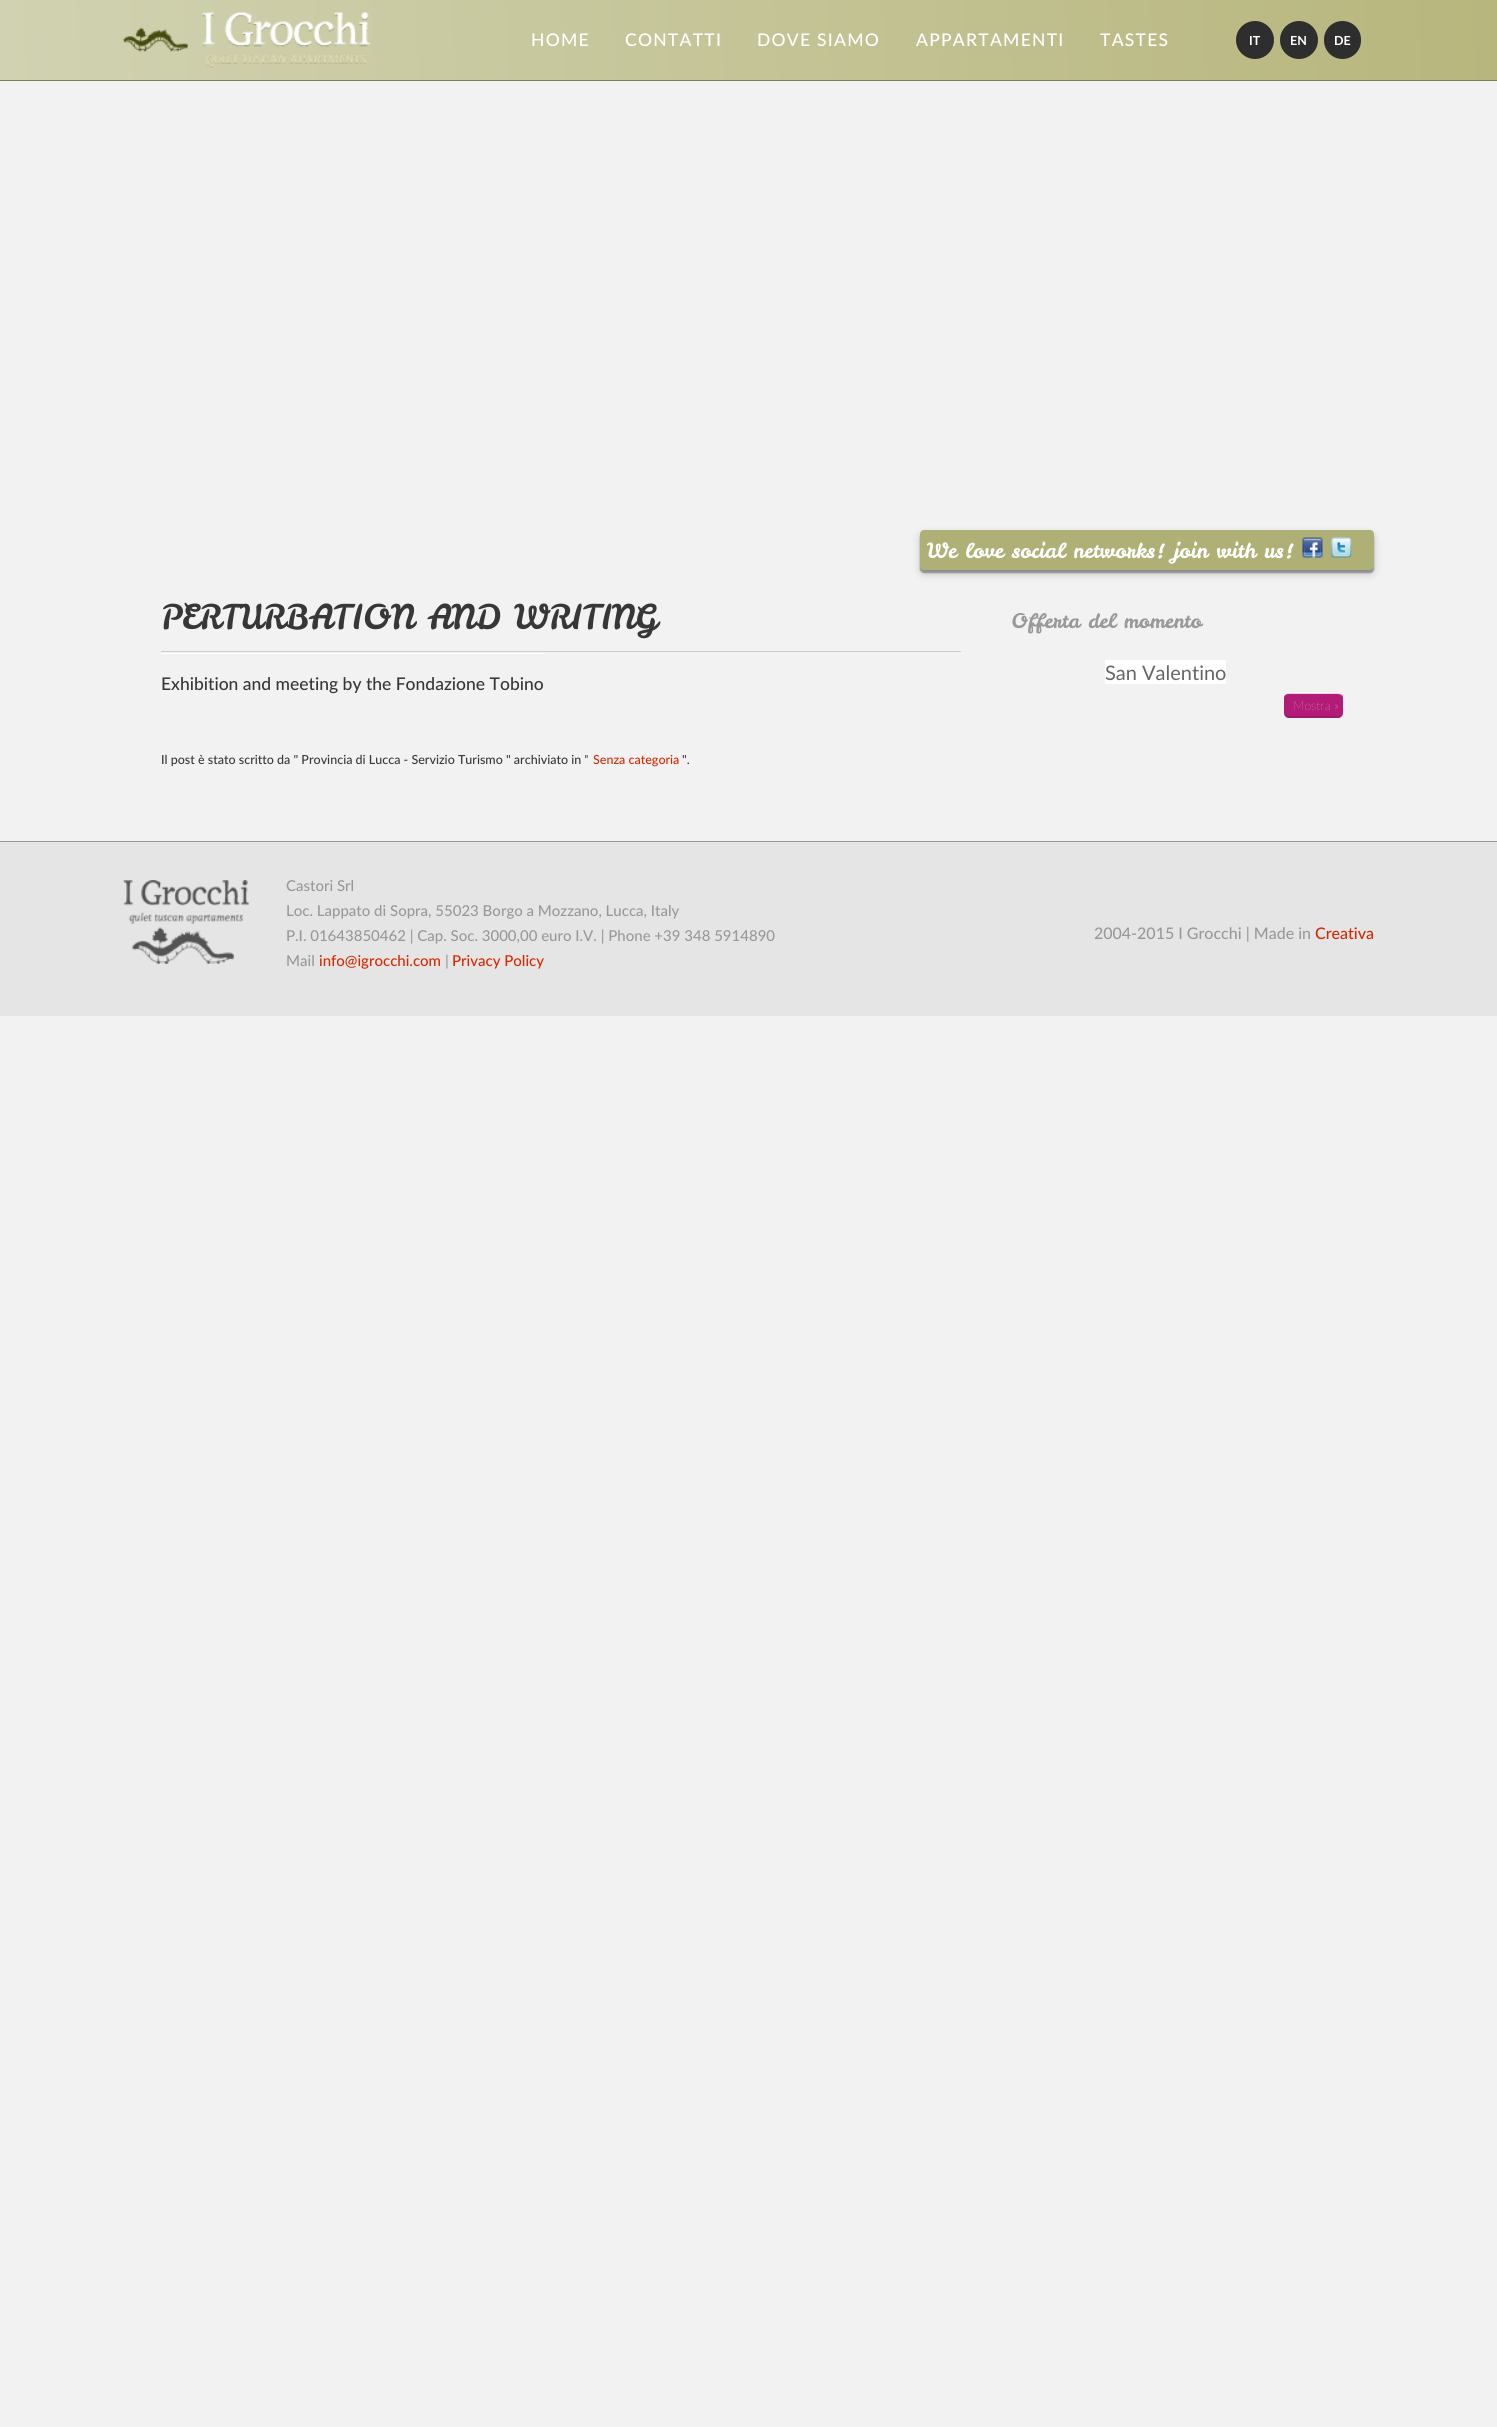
import math
import cairo



def draw_spaced(context, x, y, s, letter, word):
    context.move_to(x, y)
    for ch in s:
        context.show_text(ch)
        context.rel_move_to(letter + word * (ch == ' '), 0)


def rounded_rect(context, x, y, w, h, r):
    context.new_sub_path()
    for i, (u, v) in enumerate([(x + w - r, y + h - r), (x + r, y + h - r), (x + r, y + r), (x + w - r, y + r)]):
        context.arc(u, v, r, i * math.pi / 2, (i + 1) * math.pi / 2)
    context.close_path()


def draw_shadow(context, x, y, w, h, r, blur, alpha):
    context.push_group_with_content(cairo.Content.ALPHA)
    context.set_operator(cairo.Operator.SOURCE)
    for i in range(15, -16, -2):
        e = blur * i / 6
        if min(w, h) + 2 * e > 0:
            context.set_source_rgba(0, 0, 0, alpha * math.erfc((i - 1) / 8.5) / 2)
            rounded_rect(context, x - e, y - e, w + 2 * e, h + 2 * e, max(0, min(r + e + blur * .6, min(w, h) / 2 + e)))
            context.fill()
    context.mask(context.pop_group())


def draw_image(context, path, x, y, w, h):
    context.save()
    context.set_source_surface(cairo.ImageSurface.create_from_png(path), x, y)
    context.rectangle(x, y, w, h)
    context.fill()
    context.restore()


def draw(context):
    context.set_source_rgb(242 / 255, 242 / 255, 242 / 255)
    context.paint()
    gradient = cairo.LinearGradient(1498, 0, 0, 80)
    gradient.add_color_stop_rgba(0, 183 / 255, 182 / 255, 125 / 255, 1)
    gradient.add_color_stop_rgba(1, 209 / 255, 210 / 255, 177 / 255, 1)
    context.set_source(gradient)
    context.rectangle(0, 0, 1497, 80)
    context.fill()
    context.set_source_rgb(126 / 255, 125 / 255, 83 / 255)
    context.rectangle(0, 80, 1497, 1)
    context.fill()
    draw_image(context, "images/1.png", 123, 12, 247, 56)
    context.set_source_rgb(46 / 255, 46 / 255, 46 / 255)
    context.arc(1255, 40, 19, 0, 2 * math.pi)
    context.fill()
    context.arc(1299, 40, 19, 0, 2 * math.pi)
    context.fill()
    rounded_rect(context, 1324, 21, 37, 38, 18.5)
    context.fill()
    context.set_source_rgb(0, 0, 0)
    draw_shadow(context, 920, 534, 454, 40, 4, 4, 0.2)
    draw_shadow(context, 920, 533, 454, 40, 4, 0.5, 0.3)
    context.set_source_rgb(174 / 255, 176 / 255, 118 / 255)
    rounded_rect(context, 920, 530, 454, 40, 4)
    context.fill()
    draw_image(context, "images/2.png", 1302, 537, 21, 21)
    draw_image(context, "images/3.png", 1331, 537, 21, 21)
    context.set_source_rgb(204 / 255, 204 / 255, 204 / 255)
    context.rectangle(161, 651, 800, 1)
    context.fill()
    context.set_source_rgb(1, 1, 1)
    context.rectangle(161, 653, 383, 1)
    context.fill()
    context.rectangle(1105, 660, 121, 24)
    context.fill()
    context.set_source_rgb(178 / 255, 27 / 255, 118 / 255)
    rounded_rect(context, 1284, 693, 59, 25, 5)
    context.fill()
    context.set_source_rgba(1, 1, 1, 0.8)
    context.new_path()
    context.move_to(1289, 694)
    context.line_to(1338, 694)
    context.curve_to(1340, 694, 1342, 695, 1342, 698)
    context.curve_to(1342, 696, 1341, 693, 1339, 692)
    context.line_to(1287, 692)
    context.curve_to(1285, 693, 1284, 696, 1284, 698)
    context.curve_to(1284, 695, 1286, 694, 1289, 694)
    context.close_path()
    context.fill()
    context.set_source_rgba(0, 0, 0, 0.1)
    context.new_path()
    context.move_to(1339, 718)
    context.curve_to(1341, 717, 1342, 714, 1342, 712)
    context.curve_to(1342, 715, 1340, 716, 1338, 716)
    context.line_to(1289, 716)
    context.curve_to(1286, 716, 1284, 715, 1284, 712)
    context.curve_to(1284, 714, 1285, 717, 1287, 718)
    context.close_path()
    context.fill()
    context.set_source_rgb(229 / 255, 229 / 255, 229 / 255)
    context.rectangle(0, 842, 1497, 174)
    context.fill()
    context.set_source_rgb(153 / 255, 153 / 255, 153 / 255)
    context.rectangle(0, 841, 1497, 1)
    context.fill()
    draw_image(context, "images/4.png", 123, 880, 126, 84)
    context.select_font_face("Lato Medium")
    context.set_font_size(17.5)
    context.set_source_rgb(1, 1, 1)
    draw_spaced(context, 531, 46, "HOME", 1.25, 0)
    draw_spaced(context, 625, 46, "CONTATTI", 1.25, 0)
    draw_spaced(context, 757, 46, "DOVE SIAMO", 1.25, 0)
    draw_spaced(context, 916, 46, "APPARTAMENTI", 1.25, 0)
    draw_spaced(context, 1100, 46, "TASTES", 1.25, 0)
    context.select_font_face("Lato", cairo.FontSlant.NORMAL, cairo.FontWeight.BOLD)
    context.set_font_size(12.5)
    context.move_to(1249, 45)
    context.show_text("IT")
    context.move_to(1290, 45)
    context.show_text("EN")
    context.move_to(1334, 45)
    context.show_text("DE")
    context.select_font_face("Leckerli One")
    context.set_font_size(20.75)
    context.move_to(927, 558)
    context.show_text("We love social networks! join with us!")
    context.set_font_size(33.75)
    context.set_source_rgb(55 / 255, 55 / 255, 55 / 255)
    context.move_to(161, 629)
    context.show_text("PERTURBATION AND WRITING")
    context.select_font_face("Lato Medium")
    context.set_font_size(17.5)
    context.move_to(161, 690)
    context.show_text("Exhibition and meeting by the Fondazione Tobino")
    context.set_font_size(12.5)
    context.move_to(161, 764)
    context.show_text("Il post è stato scritto da \" Provincia di Lucca - Servizio Turismo \" archiviato in \"")
    context.set_source_rgb(214 / 255, 40 / 255, 0)
    context.move_to(593, 764)
    context.show_text("Senza categoria")
    context.set_source_rgb(55 / 255, 55 / 255, 55 / 255)
    context.move_to(682, 764)
    context.show_text("\".")
    context.select_font_face("Leckerli One")
    context.set_font_size(20)
    context.set_source_rgb(153 / 255, 153 / 255, 153 / 255)
    context.move_to(1011, 628)
    context.show_text("Offerta del momento")
    context.select_font_face("Lato")
    context.set_source_rgb(102 / 255, 102 / 255, 102 / 255)
    context.move_to(1105, 680)
    context.show_text("San Valentino")
    context.select_font_face("Lato ExtraLight")
    context.set_font_size(12.5)
    context.set_source_rgb(1, 1, 1)
    context.move_to(1293, 710)
    context.show_text("Mostra »")
    context.select_font_face("Lato Medium")
    context.set_font_size(15)
    context.set_source_rgb(153 / 255, 153 / 255, 153 / 255)
    context.move_to(286, 891)
    context.show_text("Castori Srl")
    context.move_to(286, 916)
    context.show_text("Loc. Lappato di Sopra, 55023 Borgo a Mozzano, Lucca, Italy")
    context.move_to(286, 941)
    context.show_text("P.I. 01643850462 | Cap. Soc. 3000,00 euro I.V. | Phone +39 348 5914890")
    context.move_to(286, 966)
    context.show_text("Mail")
    context.set_source_rgb(214 / 255, 40 / 255, 0)
    context.move_to(319, 966)
    context.show_text("info@igrocchi.com")
    context.set_source_rgb(153 / 255, 153 / 255, 153 / 255)
    context.move_to(445, 966)
    context.show_text("|")
    context.set_source_rgb(214 / 255, 40 / 255, 0)
    context.move_to(452, 966)
    context.show_text("Privacy Policy")
    context.set_font_size(16)
    context.set_source_rgb(153 / 255, 153 / 255, 153 / 255)
    context.move_to(1094, 939)
    context.show_text("2004-2015 I Grocchi | Made in")
    context.set_source_rgb(214 / 255, 40 / 255, 0)
    context.move_to(1315, 939)
    context.show_text("Creativa")


surface = cairo.ImageSurface(cairo.Format.RGB24, 1497, 2427)
context = cairo.Context(surface)
options = cairo.FontOptions()
options.set_hint_metrics(cairo.HintMetrics.OFF)
options.set_hint_style(cairo.HintStyle.NONE)
context.set_font_options(options)
context.set_miter_limit(4)
draw(context)
surface.write_to_png("out.png")
